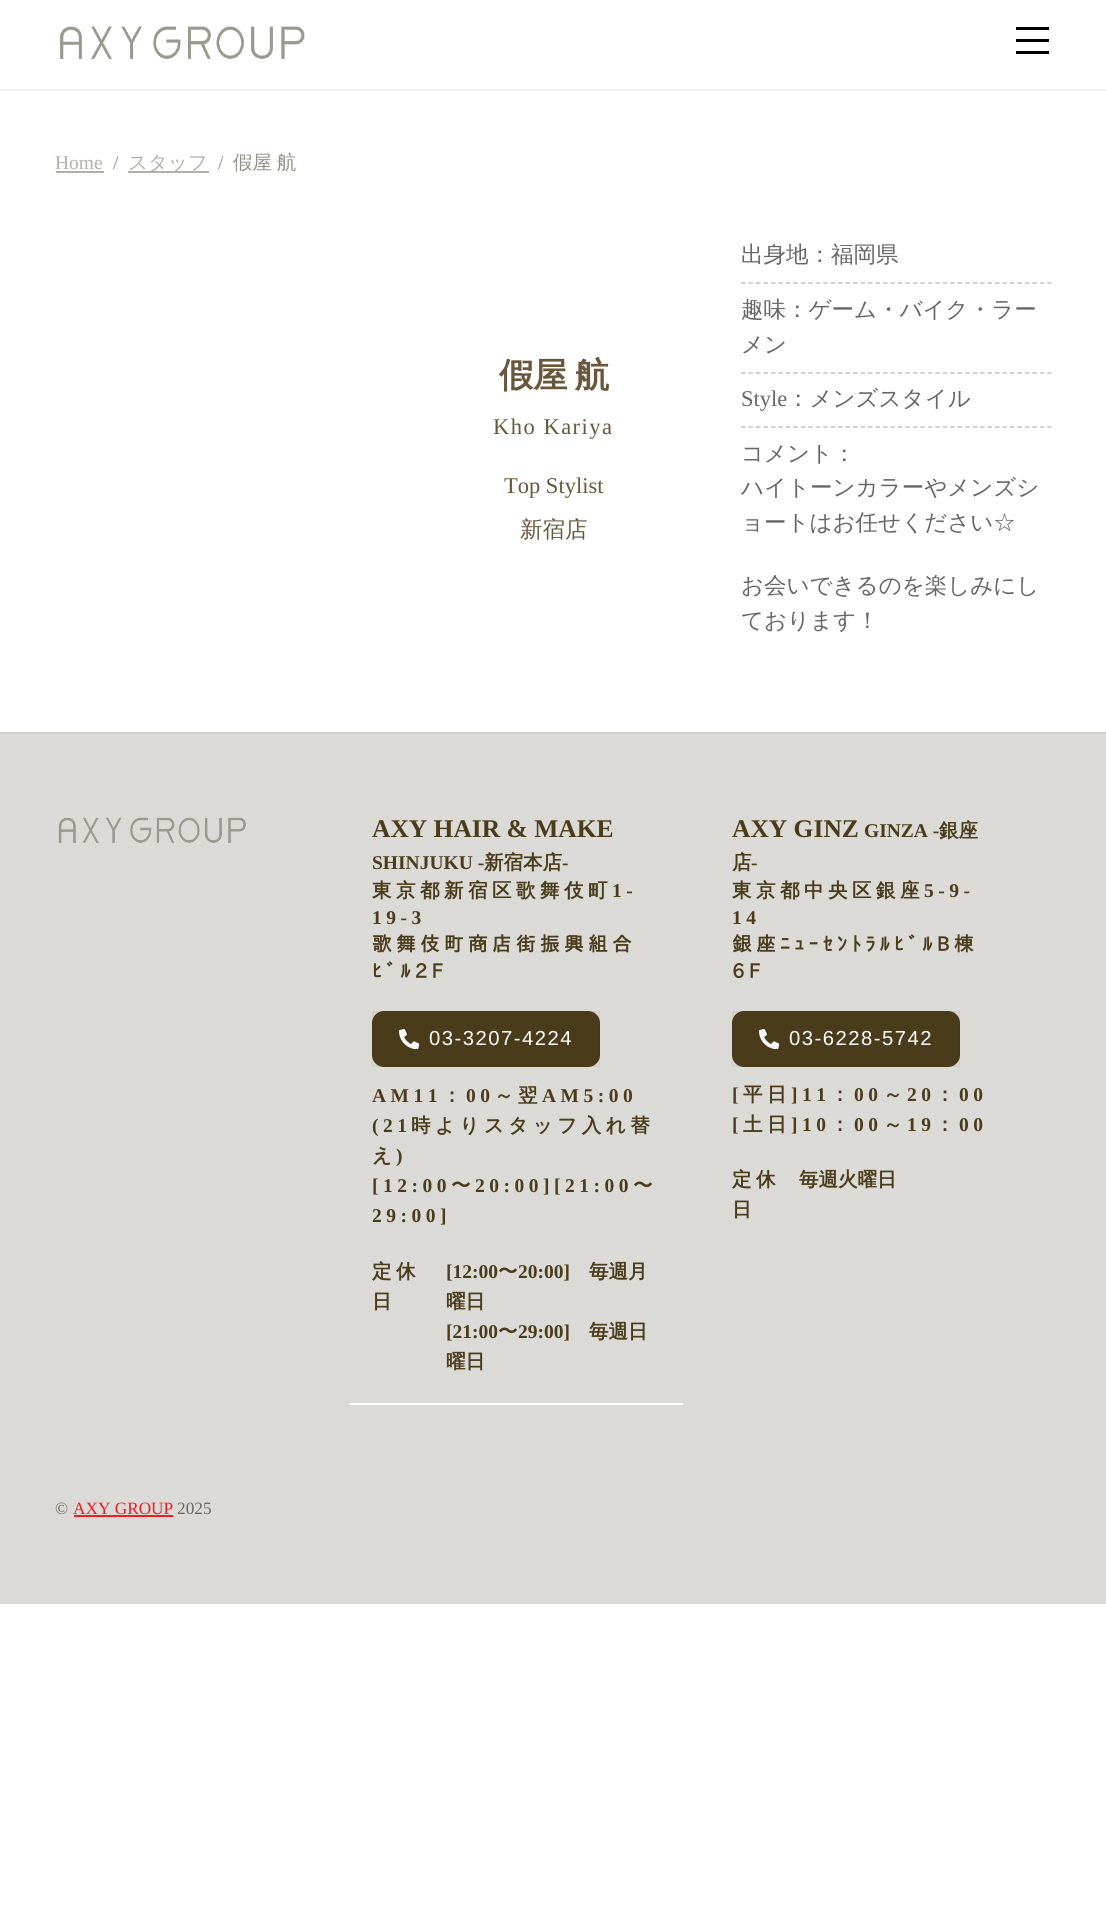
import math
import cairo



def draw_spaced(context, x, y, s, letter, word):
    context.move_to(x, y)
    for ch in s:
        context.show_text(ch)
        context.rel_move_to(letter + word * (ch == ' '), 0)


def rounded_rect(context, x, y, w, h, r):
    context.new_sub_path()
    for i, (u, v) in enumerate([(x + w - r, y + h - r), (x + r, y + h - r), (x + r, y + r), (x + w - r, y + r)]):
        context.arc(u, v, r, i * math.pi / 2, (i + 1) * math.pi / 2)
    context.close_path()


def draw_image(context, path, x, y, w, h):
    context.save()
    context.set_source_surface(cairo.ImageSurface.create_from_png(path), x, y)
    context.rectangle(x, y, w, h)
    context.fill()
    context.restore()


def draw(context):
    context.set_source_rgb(1, 1, 1)
    context.paint()
    context.set_source_rgb(242 / 255, 242 / 255, 242 / 255)
    context.rectangle(0, 89, 1106, 2)
    context.fill()
    draw_image(context, "images/1.png", 59, 26, 246, 33)
    context.set_source_rgb(0, 0, 0)
    context.rectangle(1016, 51, 33, 3)
    context.fill()
    context.rectangle(1016, 27, 33, 3)
    context.fill()
    context.rectangle(1016, 39, 33, 3)
    context.fill()
    context.set_source_rgb(179 / 255, 176 / 255, 170 / 255)
    context.rectangle(56, 171, 48, 2)
    context.fill()
    context.rectangle(128, 171, 81, 2)
    context.fill()
    context.new_path()
    context.move_to(741, 283)
    context.line_to(1051.5, 283)
    context.set_source_rgb(194 / 255, 194 / 255, 194 / 255)
    context.set_line_width(1.5)
    context.set_dash([4.5, 2.97])
    context.stroke()
    context.new_path()
    context.move_to(741, 373)
    context.line_to(1051.5, 373)
    context.stroke()
    context.new_path()
    context.move_to(741, 427)
    context.line_to(1051.5, 427)
    context.stroke()
    context.set_source_rgb(219 / 255, 218 / 255, 215 / 255)
    context.rectangle(0, 734, 1106, 870)
    context.fill()
    context.set_source_rgb(208 / 255, 207 / 255, 204 / 255)
    context.rectangle(0, 732, 1106, 2)
    context.fill()
    draw_image(context, "images/2.png", 58, 817, 188, 26)
    context.set_source_rgb(1, 1, 1)
    context.rectangle(350, 1403, 333, 2)
    context.fill()
    context.set_source_rgb(74 / 255, 60 / 255, 26 / 255)
    rounded_rect(context, 372, 1011, 228, 56, 12)
    context.fill()
    context.rectangle(373, 1012, 226, 54)
    context.set_source_rgba(0, 0, 0, 0.05)
    context.set_line_width(2)
    context.set_dash([])
    context.stroke()
    draw_image(context, "images/3.png", 399, 1029, 20, 20)
    context.set_source_rgb(74 / 255, 60 / 255, 26 / 255)
    rounded_rect(context, 732, 1011, 228, 56, 12)
    context.fill()
    context.rectangle(733, 1012, 226, 54)
    context.set_source_rgba(0, 0, 0, 0.05)
    context.stroke()
    draw_image(context, "images/3.png", 759, 1029, 20, 20)
    context.set_source_rgb(237 / 255, 30 / 255, 36 / 255)
    context.rectangle(74, 1515, 99, 2)
    context.fill()
    context.select_font_face("Liberation Serif")
    context.set_font_size(19.5)
    context.set_source_rgb(179 / 255, 176 / 255, 170 / 255)
    context.move_to(55, 169)
    context.show_text("Home")
    context.set_source_rgb(148 / 255, 143 / 255, 132 / 255)
    context.move_to(113, 169)
    context.show_text("/")
    context.select_font_face("WenQuanYi Zen Hei Medium")
    context.set_source_rgb(179 / 255, 176 / 255, 170 / 255)
    context.move_to(128, 169)
    context.show_text("スタッフ")
    context.select_font_face("Liberation Serif")
    context.set_source_rgb(148 / 255, 143 / 255, 132 / 255)
    context.move_to(218, 169)
    context.show_text("/")
    context.select_font_face("WenQuanYi Zen Hei Medium")
    draw_spaced(context, 233, 169, "假屋 航", 0, -1)
    context.select_font_face("WenQuanYi Zen Hei", cairo.FontSlant.NORMAL, cairo.FontWeight.BOLD)
    context.set_font_size(34.5)
    context.set_source_rgb(105 / 255, 87 / 255, 59 / 255)
    draw_spaced(context, 499, 387, "假屋 航", -0.5, -2)
    context.select_font_face("Liberation Serif")
    context.set_font_size(22.5)
    draw_spaced(context, 493, 434, "Kho Kariya", 1.5, 0)
    context.move_to(504, 493)
    context.show_text("Top Stylist")
    context.select_font_face("WenQuanYi Zen Hei Medium")
    context.move_to(520, 537)
    context.show_text("新宿店")
    context.set_source_rgb(102 / 255, 102 / 255, 102 / 255)
    context.move_to(741, 262)
    context.show_text("出身地：福岡県")
    context.move_to(741, 317)
    context.show_text("趣味：ゲーム・バイク・ラー")
    context.move_to(741, 352)
    context.show_text("メン")
    context.select_font_face("Liberation Serif")
    context.move_to(741, 406)
    context.show_text("Style")
    context.select_font_face("WenQuanYi Zen Hei Medium")
    context.move_to(787, 406)
    context.show_text("：メンズスタイル")
    context.move_to(741, 461)
    context.show_text("コメント：")
    context.move_to(741, 495)
    context.show_text("ハイトーンカラーやメンズシ")
    context.move_to(741, 530)
    context.show_text("ョートはお任せください☆")
    context.move_to(741, 593)
    context.show_text("お会いできるのを楽しみにし")
    context.move_to(741, 628)
    context.show_text("ております！")
    context.select_font_face("Liberation Serif", cairo.FontSlant.NORMAL, cairo.FontWeight.BOLD)
    context.set_font_size(25.5)
    context.set_source_rgb(74 / 255, 60 / 255, 26 / 255)
    context.move_to(372, 837)
    context.show_text("AXY HAIR & MAKE")
    context.set_font_size(19.5)
    context.move_to(372, 869)
    context.show_text("SHINJUKU -")
    context.select_font_face("WenQuanYi Zen Hei", cairo.FontSlant.NORMAL, cairo.FontWeight.BOLD)
    context.move_to(484, 869)
    context.show_text("新宿本店")
    context.select_font_face("Liberation Serif", cairo.FontSlant.NORMAL, cairo.FontWeight.BOLD)
    context.move_to(562, 869)
    context.show_text("-")
    context.select_font_face("WenQuanYi Zen Hei", cairo.FontSlant.NORMAL, cairo.FontWeight.BOLD)
    draw_spaced(context, 372, 897, "東京都新宿区歌舞伎町", 4.5, 0)
    context.select_font_face("Liberation Serif", cairo.FontSlant.NORMAL, cairo.FontWeight.BOLD)
    draw_spaced(context, 612, 897, "1-", 4.5, 0)
    draw_spaced(context, 372, 924, "19-3", 4.5, 0)
    context.select_font_face("IPAPGothic", cairo.FontSlant.NORMAL, cairo.FontWeight.BOLD)
    draw_spaced(context, 372, 951, "歌舞伎町商店街振興組合", 4.5, 0)
    draw_spaced(context, 372, 978, "ﾋﾞﾙ2F", 4.5, 0)
    context.select_font_face("Liberation Sans")
    context.set_font_size(20.25)
    context.set_source_rgb(1, 1, 1)
    draw_spaced(context, 429, 1045, "03-3207-4224", 1.5, 0)
    context.select_font_face("Liberation Serif", cairo.FontSlant.NORMAL, cairo.FontWeight.BOLD)
    context.set_font_size(19.5)
    context.set_source_rgb(74 / 255, 60 / 255, 26 / 255)
    draw_spaced(context, 372, 1102, "AM11", 4.5, 0)
    context.select_font_face("WenQuanYi Zen Hei", cairo.FontSlant.NORMAL, cairo.FontWeight.BOLD)
    draw_spaced(context, 442, 1102, "：", 4.5, 0)
    context.select_font_face("Liberation Serif", cairo.FontSlant.NORMAL, cairo.FontWeight.BOLD)
    draw_spaced(context, 466, 1102, "00", 4.5, 0)
    context.select_font_face("WenQuanYi Zen Hei", cairo.FontSlant.NORMAL, cairo.FontWeight.BOLD)
    draw_spaced(context, 494, 1102, "～翌", 4.5, 0)
    context.select_font_face("Liberation Serif", cairo.FontSlant.NORMAL, cairo.FontWeight.BOLD)
    draw_spaced(context, 542, 1102, "AM5:00", 4.5, 0)
    draw_spaced(context, 372, 1132, "(21", 4.5, 0)
    context.select_font_face("WenQuanYi Zen Hei", cairo.FontSlant.NORMAL, cairo.FontWeight.BOLD)
    draw_spaced(context, 411, 1132, "時よりスタッフ入れ替", 4.5, 0)
    draw_spaced(context, 372, 1162, "え", 4.5, 0)
    context.select_font_face("Liberation Serif", cairo.FontSlant.NORMAL, cairo.FontWeight.BOLD)
    draw_spaced(context, 396, 1162, ")", 4.5, 0)
    draw_spaced(context, 372, 1192, "[12:00", 4.5, 0)
    context.select_font_face("WenQuanYi Zen Hei", cairo.FontSlant.NORMAL, cairo.FontWeight.BOLD)
    draw_spaced(context, 451, 1192, "〜", 4.5, 0)
    context.select_font_face("Liberation Serif", cairo.FontSlant.NORMAL, cairo.FontWeight.BOLD)
    draw_spaced(context, 475, 1192, "20:00][21:00", 4.5, 0)
    context.select_font_face("WenQuanYi Zen Hei", cairo.FontSlant.NORMAL, cairo.FontWeight.BOLD)
    draw_spaced(context, 633, 1192, "〜", 4.5, 0)
    context.select_font_face("Liberation Serif", cairo.FontSlant.NORMAL, cairo.FontWeight.BOLD)
    draw_spaced(context, 372, 1222, "29:00]", 4.5, 0)
    context.select_font_face("WenQuanYi Zen Hei", cairo.FontSlant.NORMAL, cairo.FontWeight.BOLD)
    draw_spaced(context, 372, 1278, "定休", 4.5, 0)
    draw_spaced(context, 372, 1308, "日", 4.5, 0)
    context.select_font_face("Liberation Serif", cairo.FontSlant.NORMAL, cairo.FontWeight.BOLD)
    context.move_to(446, 1278)
    context.show_text("[12:00")
    context.select_font_face("WenQuanYi Zen Hei", cairo.FontSlant.NORMAL, cairo.FontWeight.BOLD)
    context.move_to(498, 1278)
    context.show_text("〜")
    context.select_font_face("Liberation Serif", cairo.FontSlant.NORMAL, cairo.FontWeight.BOLD)
    context.move_to(518, 1278)
    context.show_text("20:00]")
    context.select_font_face("WenQuanYi Zen Hei", cairo.FontSlant.NORMAL, cairo.FontWeight.BOLD)
    context.move_to(589, 1278)
    context.show_text("毎週月")
    context.move_to(446, 1308)
    context.show_text("曜日")
    context.select_font_face("Liberation Serif", cairo.FontSlant.NORMAL, cairo.FontWeight.BOLD)
    context.move_to(446, 1338)
    context.show_text("[21:00")
    context.select_font_face("WenQuanYi Zen Hei", cairo.FontSlant.NORMAL, cairo.FontWeight.BOLD)
    context.move_to(498, 1338)
    context.show_text("〜")
    context.select_font_face("Liberation Serif", cairo.FontSlant.NORMAL, cairo.FontWeight.BOLD)
    context.move_to(518, 1338)
    context.show_text("29:00]")
    context.select_font_face("WenQuanYi Zen Hei", cairo.FontSlant.NORMAL, cairo.FontWeight.BOLD)
    context.move_to(589, 1338)
    context.show_text("毎週日")
    context.move_to(446, 1368)
    context.show_text("曜日")
    context.select_font_face("Liberation Serif", cairo.FontSlant.NORMAL, cairo.FontWeight.BOLD)
    context.set_font_size(25.5)
    context.move_to(732, 837)
    context.show_text("AXY GINZ")
    context.set_font_size(19.5)
    context.move_to(864, 837)
    context.show_text("GINZA -")
    context.select_font_face("WenQuanYi Zen Hei", cairo.FontSlant.NORMAL, cairo.FontWeight.BOLD)
    context.move_to(939, 837)
    context.show_text("銀座")
    context.move_to(732, 869)
    context.show_text("店")
    context.select_font_face("Liberation Serif", cairo.FontSlant.NORMAL, cairo.FontWeight.BOLD)
    context.move_to(751, 869)
    context.show_text("-")
    context.select_font_face("WenQuanYi Zen Hei", cairo.FontSlant.NORMAL, cairo.FontWeight.BOLD)
    draw_spaced(context, 732, 897, "東京都中央区銀座", 4.5, 0)
    context.select_font_face("Liberation Serif", cairo.FontSlant.NORMAL, cairo.FontWeight.BOLD)
    draw_spaced(context, 924, 897, "5-9-", 4.5, 0)
    draw_spaced(context, 732, 924, "14", 4.5, 0)
    context.select_font_face("IPAPGothic", cairo.FontSlant.NORMAL, cairo.FontWeight.BOLD)
    draw_spaced(context, 732, 951, "銀座ﾆｭｰｾﾝﾄﾗﾙﾋﾞﾙB棟", 4.5, 0)
    draw_spaced(context, 732, 978, "6F", 4.5, 0)
    context.select_font_face("Liberation Sans")
    context.set_font_size(20.25)
    context.set_source_rgb(1, 1, 1)
    draw_spaced(context, 789, 1045, "03-6228-5742", 1.5, 0)
    context.select_font_face("Liberation Serif", cairo.FontSlant.NORMAL, cairo.FontWeight.BOLD)
    context.set_font_size(19.5)
    context.set_source_rgb(74 / 255, 60 / 255, 26 / 255)
    draw_spaced(context, 732, 1101, "[", 4.5, 0)
    context.select_font_face("WenQuanYi Zen Hei", cairo.FontSlant.NORMAL, cairo.FontWeight.BOLD)
    draw_spaced(context, 743, 1101, "平日", 4.5, 0)
    context.select_font_face("Liberation Serif", cairo.FontSlant.NORMAL, cairo.FontWeight.BOLD)
    draw_spaced(context, 791, 1101, "]11", 4.5, 0)
    context.select_font_face("WenQuanYi Zen Hei", cairo.FontSlant.NORMAL, cairo.FontWeight.BOLD)
    draw_spaced(context, 830, 1101, "：", 4.5, 0)
    context.select_font_face("Liberation Serif", cairo.FontSlant.NORMAL, cairo.FontWeight.BOLD)
    draw_spaced(context, 854, 1101, "00", 4.5, 0)
    context.select_font_face("WenQuanYi Zen Hei", cairo.FontSlant.NORMAL, cairo.FontWeight.BOLD)
    draw_spaced(context, 883, 1101, "～", 4.5, 0)
    context.select_font_face("Liberation Serif", cairo.FontSlant.NORMAL, cairo.FontWeight.BOLD)
    draw_spaced(context, 907, 1101, "20", 4.5, 0)
    context.select_font_face("WenQuanYi Zen Hei", cairo.FontSlant.NORMAL, cairo.FontWeight.BOLD)
    draw_spaced(context, 935, 1101, "：", 4.5, 0)
    context.select_font_face("Liberation Serif", cairo.FontSlant.NORMAL, cairo.FontWeight.BOLD)
    draw_spaced(context, 959, 1101, "00", 4.5, 0)
    draw_spaced(context, 732, 1131, "[", 4.5, 0)
    context.select_font_face("WenQuanYi Zen Hei", cairo.FontSlant.NORMAL, cairo.FontWeight.BOLD)
    draw_spaced(context, 743, 1131, "土日", 4.5, 0)
    context.select_font_face("Liberation Serif", cairo.FontSlant.NORMAL, cairo.FontWeight.BOLD)
    draw_spaced(context, 791, 1131, "]10", 4.5, 0)
    context.select_font_face("WenQuanYi Zen Hei", cairo.FontSlant.NORMAL, cairo.FontWeight.BOLD)
    draw_spaced(context, 830, 1131, "：", 4.5, 0)
    context.select_font_face("Liberation Serif", cairo.FontSlant.NORMAL, cairo.FontWeight.BOLD)
    draw_spaced(context, 854, 1131, "00", 4.5, 0)
    context.select_font_face("WenQuanYi Zen Hei", cairo.FontSlant.NORMAL, cairo.FontWeight.BOLD)
    draw_spaced(context, 883, 1131, "～", 4.5, 0)
    context.select_font_face("Liberation Serif", cairo.FontSlant.NORMAL, cairo.FontWeight.BOLD)
    draw_spaced(context, 907, 1131, "19", 4.5, 0)
    context.select_font_face("WenQuanYi Zen Hei", cairo.FontSlant.NORMAL, cairo.FontWeight.BOLD)
    draw_spaced(context, 935, 1131, "：", 4.5, 0)
    context.select_font_face("Liberation Serif", cairo.FontSlant.NORMAL, cairo.FontWeight.BOLD)
    draw_spaced(context, 959, 1131, "00", 4.5, 0)
    context.select_font_face("WenQuanYi Zen Hei", cairo.FontSlant.NORMAL, cairo.FontWeight.BOLD)
    draw_spaced(context, 732, 1186, "定休", 4.5, 0)
    draw_spaced(context, 732, 1216, "日", 4.5, 0)
    context.move_to(799, 1186)
    context.show_text("毎週火曜日")
    context.select_font_face("Liberation Serif")
    context.set_font_size(17.25)
    context.set_source_rgb(102 / 255, 102 / 255, 102 / 255)
    context.move_to(55, 1514)
    context.show_text("©")
    context.set_source_rgb(237 / 255, 30 / 255, 36 / 255)
    context.move_to(73, 1514)
    context.show_text("AXY GROUP")
    context.set_source_rgb(102 / 255, 102 / 255, 102 / 255)
    context.move_to(177, 1514)
    context.show_text("2025")


surface = cairo.ImageSurface(cairo.Format.RGB24, 1106, 1917)
context = cairo.Context(surface)
options = cairo.FontOptions()
options.set_hint_metrics(cairo.HintMetrics.OFF)
options.set_hint_style(cairo.HintStyle.NONE)
context.set_font_options(options)
context.set_miter_limit(4)
draw(context)
surface.write_to_png("out.png")
